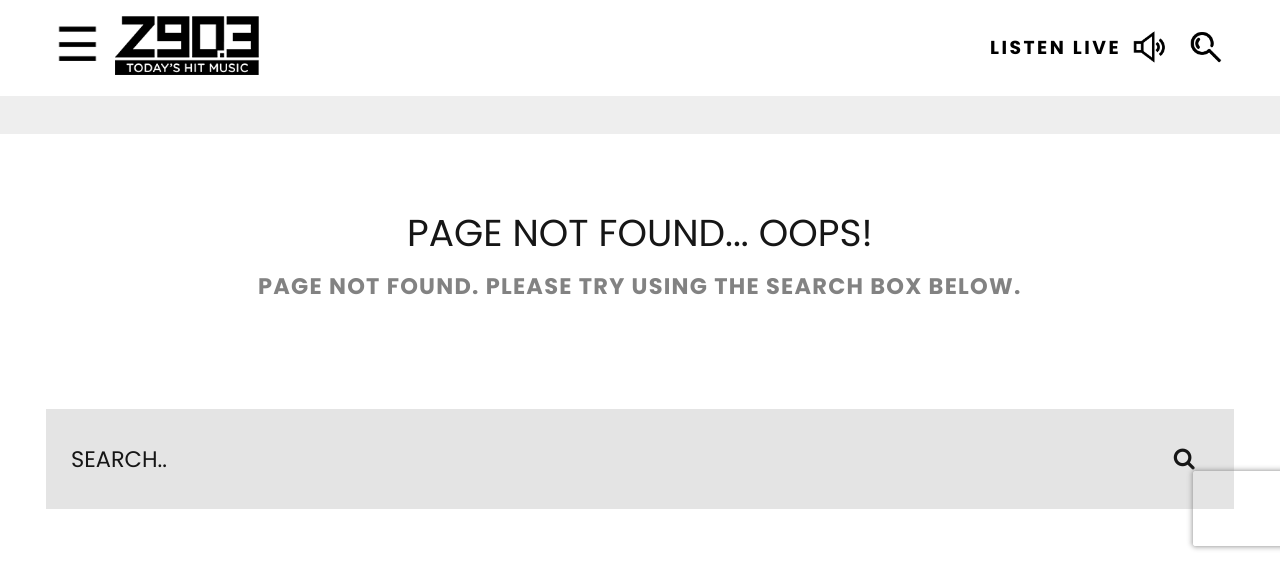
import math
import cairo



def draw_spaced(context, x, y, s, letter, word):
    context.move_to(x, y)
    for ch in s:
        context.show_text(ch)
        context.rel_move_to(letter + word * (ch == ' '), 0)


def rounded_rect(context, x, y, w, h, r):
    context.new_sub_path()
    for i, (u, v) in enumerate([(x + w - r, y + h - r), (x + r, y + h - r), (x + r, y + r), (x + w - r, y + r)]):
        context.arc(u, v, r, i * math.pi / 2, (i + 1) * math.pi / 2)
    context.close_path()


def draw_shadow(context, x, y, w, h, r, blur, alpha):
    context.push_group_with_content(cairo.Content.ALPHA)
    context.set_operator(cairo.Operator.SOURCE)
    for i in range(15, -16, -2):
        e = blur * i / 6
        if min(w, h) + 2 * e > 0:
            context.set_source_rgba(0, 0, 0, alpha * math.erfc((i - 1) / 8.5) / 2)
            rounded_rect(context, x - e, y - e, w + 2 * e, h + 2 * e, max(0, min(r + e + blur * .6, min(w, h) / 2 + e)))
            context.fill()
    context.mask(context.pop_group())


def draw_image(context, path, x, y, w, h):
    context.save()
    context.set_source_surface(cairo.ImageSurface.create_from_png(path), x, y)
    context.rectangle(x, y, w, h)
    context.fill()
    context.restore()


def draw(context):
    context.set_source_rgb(1, 1, 1)
    context.paint()
    draw_image(context, "images/1.png", 58, 26, 39, 35)
    draw_image(context, "images/2.png", 115, 16, 144, 59)
    draw_image(context, "images/3.png", 1133, 31, 32, 32)
    draw_image(context, "images/4.png", 1190, 32, 32, 31)
    context.set_source_rgb(238 / 255, 238 / 255, 238 / 255)
    context.rectangle(0, 96, 1280, 38)
    context.fill()
    context.set_source_rgb(228 / 255, 228 / 255, 228 / 255)
    context.rectangle(46, 409, 1188, 100)
    context.fill()
    draw_image(context, "images/5.png", 1173, 448, 22, 22)
    context.save()
    context.set_fill_rule(cairo.FillRule.EVEN_ODD)
    context.new_path()
    context.move_to(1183, 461)
    context.line_to(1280, 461)
    context.line_to(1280, 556)
    context.line_to(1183, 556)
    context.close_path()
    context.move_to(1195.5, 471)
    context.line_to(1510.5, 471)
    context.curve_to(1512, 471, 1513, 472, 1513, 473.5)
    context.line_to(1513, 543.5)
    context.curve_to(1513, 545, 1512, 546, 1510.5, 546)
    context.line_to(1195.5, 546)
    context.curve_to(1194, 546, 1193, 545, 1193, 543.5)
    context.line_to(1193, 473.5)
    context.curve_to(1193, 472, 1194, 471, 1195.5, 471)
    context.close_path()
    context.clip()
    context.set_source_rgb(128 / 255, 128 / 255, 128 / 255)
    draw_shadow(context, 1193, 471, 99, 75, 2.5, 3, 1)
    context.restore()
    context.select_font_face("Poppins", cairo.FontSlant.NORMAL, cairo.FontWeight.BOLD)
    context.set_font_size(18.75)
    context.set_source_rgb(0, 0, 0)
    draw_spaced(context, 990, 54, "LISTEN LIVE", 2.5, 0)
    context.select_font_face("Poppins")
    context.set_font_size(37.5)
    context.set_source_rgb(22 / 255, 22 / 255, 22 / 255)
    context.move_to(407, 246)
    context.show_text("PAGE NOT FOUND... OOPS!")
    context.select_font_face("Poppins", cairo.FontSlant.NORMAL, cairo.FontWeight.BOLD)
    context.set_font_size(22.5)
    context.set_source_rgb(130 / 255, 130 / 255, 130 / 255)
    draw_spaced(context, 258, 294, "PAGE NOT FOUND. PLEASE TRY USING THE SEARCH BOX BELOW.", 1.25, 0)
    context.select_font_face("Poppins")
    context.set_source_rgb(22 / 255, 22 / 255, 22 / 255)
    context.move_to(71, 467)
    context.show_text("SEARCH..")


surface = cairo.ImageSurface(cairo.Format.RGB24, 1280, 563)
context = cairo.Context(surface)
options = cairo.FontOptions()
options.set_hint_metrics(cairo.HintMetrics.OFF)
options.set_hint_style(cairo.HintStyle.NONE)
context.set_font_options(options)
context.set_miter_limit(4)
draw(context)
surface.write_to_png("out.png")
